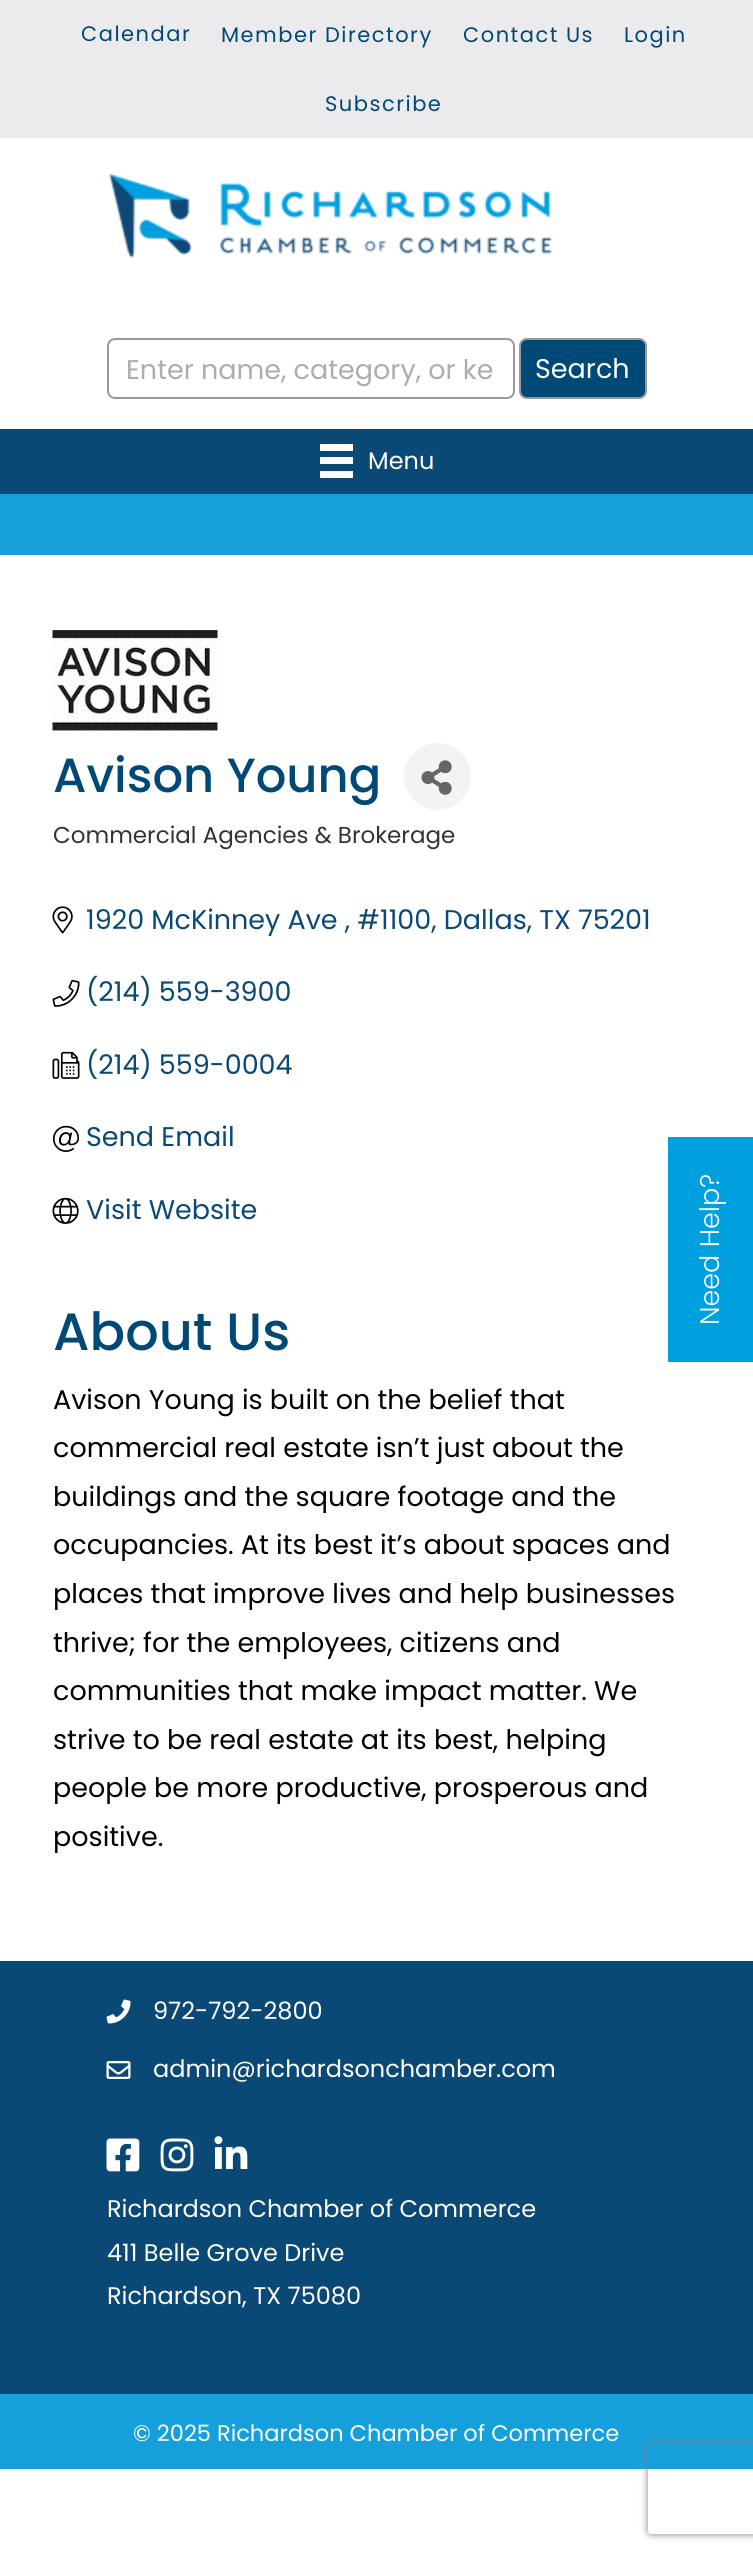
import math
import cairo



def draw_spaced(context, x, y, s, letter, word):
    context.move_to(x, y)
    for ch in s:
        context.show_text(ch)
        context.rel_move_to(letter + word * (ch == ' '), 0)


def rounded_rect(context, x, y, w, h, r):
    context.new_sub_path()
    for i, (u, v) in enumerate([(x + w - r, y + h - r), (x + r, y + h - r), (x + r, y + r), (x + w - r, y + r)]):
        context.arc(u, v, r, i * math.pi / 2, (i + 1) * math.pi / 2)
    context.close_path()


def draw_shadow(context, x, y, w, h, r, blur, alpha):
    context.push_group_with_content(cairo.Content.ALPHA)
    context.set_operator(cairo.Operator.SOURCE)
    for i in range(15, -16, -2):
        e = blur * i / 6
        if min(w, h) + 2 * e > 0:
            context.set_source_rgba(0, 0, 0, alpha * math.erfc((i - 1) / 8.5) / 2)
            rounded_rect(context, x - e, y - e, w + 2 * e, h + 2 * e, max(0, min(r + e + blur * .6, min(w, h) / 2 + e)))
            context.fill()
    context.mask(context.pop_group())


def draw_image(context, path, x, y, w, h):
    context.save()
    context.set_source_surface(cairo.ImageSurface.create_from_png(path), x, y)
    context.rectangle(x, y, w, h)
    context.fill()
    context.restore()


def draw(context):
    context.set_source_rgb(1, 1, 1)
    context.paint()
    context.set_source_rgb(235 / 255, 235 / 255, 237 / 255)
    context.rectangle(0, 0, 753, 138)
    context.fill()
    draw_image(context, "images/1.png", 109, 173, 444, 86)
    rounded_rect(context, 108, 339, 406, 59, 7)
    context.set_source_rgb(153 / 255, 153 / 255, 153 / 255)
    context.stroke()
    context.set_source_rgb(0, 72 / 255, 118 / 255)
    rounded_rect(context, 520, 339, 126, 59, 7)
    context.fill_preserve()
    context.set_source_rgb(153 / 255, 153 / 255, 153 / 255)
    context.stroke()
    context.set_source_rgb(10 / 255, 72 / 255, 117 / 255)
    context.rectangle(0, 429, 753, 65)
    context.fill()
    context.set_source_rgb(1, 1, 1)
    context.rectangle(320, 444, 33, 7)
    context.fill()
    context.rectangle(320, 457, 33, 7)
    context.fill()
    context.rectangle(320, 471, 33, 7)
    context.fill()
    context.set_source_rgb(22 / 255, 160 / 255, 219 / 255)
    context.rectangle(0, 494, 753, 61)
    context.fill()
    draw_image(context, "images/2.png", 52, 630, 166, 101)
    context.set_source_rgb(243 / 255, 243 / 255, 243 / 255)
    context.arc(437.5, 776.5, 33.5, 0, 2 * math.pi)
    context.fill()
    draw_image(context, "images/3.png", 421, 760, 31, 35)
    draw_image(context, "images/4.png", 52, 906, 21, 28)
    draw_image(context, "images/5.png", 52, 979, 28, 28)
    draw_image(context, "images/6.png", 52, 1051, 28, 28)
    draw_image(context, "images/7.png", 52, 1125, 28, 27)
    draw_image(context, "images/8.png", 52, 1197, 27, 27)
    context.set_source_rgb(10 / 255, 72 / 255, 117 / 255)
    context.rectangle(0, 1961, 753, 433)
    context.fill()
    draw_image(context, "images/9.png", 106, 1999, 25, 25)
    draw_image(context, "images/10.png", 106, 2061, 25, 18)
    draw_image(context, "images/11.png", 106, 2138, 34, 34)
    draw_image(context, "images/12.png", 160, 2138, 34, 34)
    draw_image(context, "images/13.png", 214, 2136, 34, 33)
    context.set_source_rgb(22 / 255, 160 / 255, 219 / 255)
    context.rectangle(0, 2394, 753, 75)
    context.fill()
    context.set_source_rgb(0, 160 / 255, 223 / 255)
    context.rectangle(668, 1137, 85, 225)
    context.fill()
    context.save()
    context.set_fill_rule(cairo.FillRule.EVEN_ODD)
    context.new_path()
    context.move_to(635, 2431)
    context.line_to(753, 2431)
    context.line_to(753, 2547)
    context.line_to(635, 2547)
    context.close_path()
    context.move_to(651, 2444)
    context.line_to(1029, 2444)
    context.curve_to(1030.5, 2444, 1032, 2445.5, 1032, 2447)
    context.line_to(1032, 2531)
    context.curve_to(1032, 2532.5, 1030.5, 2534, 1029, 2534)
    context.line_to(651, 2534)
    context.curve_to(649.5, 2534, 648, 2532.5, 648, 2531)
    context.line_to(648, 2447)
    context.curve_to(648, 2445.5, 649.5, 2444, 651, 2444)
    context.close_path()
    context.clip()
    context.set_source_rgb(128 / 255, 128 / 255, 128 / 255)
    draw_shadow(context, 648, 2444, 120, 90, 3, 4, 1)
    context.restore()
    context.select_font_face("Poppins")
    context.set_font_size(21)
    context.set_source_rgb(0, 72 / 255, 118 / 255)
    draw_spaced(context, 81, 41, "Calendar", 1.5, 0)
    draw_spaced(context, 221, 42, "Member Directory", 1.5, 0)
    draw_spaced(context, 463, 42, "Contact Us", 1.5, 0)
    draw_spaced(context, 624, 42, "Login", 1.5, 0)
    draw_spaced(context, 325, 111, "Subscribe", 1.5, 0)
    context.set_font_size(27)
    context.set_source_rgb(173 / 255, 173 / 255, 173 / 255)
    context.move_to(126, 379)
    context.show_text("Enter name, category, or ke")
    context.set_source_rgb(1, 1, 1)
    context.move_to(535, 378)
    context.show_text("Search")
    context.set_font_size(24)
    context.move_to(368, 469)
    context.show_text("Menu")
    context.select_font_face("Poppins Medium")
    context.set_font_size(48)
    context.set_source_rgb(0, 72 / 255, 118 / 255)
    context.move_to(53, 792)
    context.show_text("Avison Young")
    context.select_font_face("Poppins")
    context.set_font_size(23)
    context.set_source_rgb(51 / 255, 51 / 255, 51 / 255)
    context.move_to(53, 843)
    context.show_text("Commercial Agencies & Brokerage")
    context.set_font_size(27)
    context.set_source_rgb(10 / 255, 72 / 255, 118 / 255)
    context.move_to(86, 929)
    context.show_text("1920 McKinney Ave , #1100, Dallas, TX 75201")
    context.move_to(86, 1001)
    context.show_text("(214) 559-3900")
    context.move_to(86, 1074)
    context.show_text("(214) 559-0004")
    context.move_to(86, 1146)
    context.show_text("Send Email")
    context.move_to(86, 1219)
    context.show_text("Visit Website")
    context.select_font_face("Poppins Medium")
    context.set_font_size(52.5)
    context.set_source_rgb(0, 72 / 255, 118 / 255)
    context.move_to(53, 1350)
    context.show_text("About Us")
    context.select_font_face("Poppins")
    context.set_font_size(27)
    context.set_source_rgb(0, 0, 0)
    context.move_to(53, 1409)
    context.show_text("Avison Young is built on the belief that")
    context.move_to(53, 1457)
    context.show_text("commercial real estate isn’t just about the")
    context.move_to(53, 1506)
    context.show_text("buildings and the square footage and the")
    context.move_to(53, 1554)
    context.show_text("occupancies. At its best it’s about spaces and")
    context.move_to(53, 1603)
    context.show_text("places that improve lives and help businesses")
    context.move_to(53, 1652)
    context.show_text("thrive; for the employees, citizens and")
    context.move_to(53, 1700)
    context.show_text("communities that make impact matter. We")
    context.move_to(53, 1749)
    context.show_text("strive to be real estate at its best, helping")
    context.move_to(53, 1797)
    context.show_text("people be more productive, prosperous and")
    context.move_to(53, 1846)
    context.show_text("positive.")
    context.set_font_size(24)
    context.set_source_rgb(1, 1, 1)
    context.move_to(153, 2019)
    context.show_text("972-792-2800")
    context.move_to(153, 2077)
    context.show_text("admin@richardsonchamber.com")
    context.move_to(107, 2217)
    context.show_text("Richardson Chamber of Commerce")
    context.move_to(107, 2261)
    context.show_text("411 Belle Grove Drive")
    context.move_to(107, 2304)
    context.show_text("Richardson, TX 75080")
    context.set_font_size(22.5)
    context.move_to(133, 2441)
    context.show_text("© 2025 Richardson Chamber of Commerce")
    context.select_font_face("Poppins Light")
    context.set_font_size(27)
    context.save()
    context.translate(719, 1325)
    context.rotate(-90 * math.pi / 180)
    context.move_to(0, 0)
    context.show_text("Need Help?")
    context.restore()


surface = cairo.ImageSurface(cairo.Format.RGB24, 753, 2554)
context = cairo.Context(surface)
options = cairo.FontOptions()
options.set_hint_metrics(cairo.HintMetrics.OFF)
options.set_hint_style(cairo.HintStyle.NONE)
context.set_font_options(options)
context.set_miter_limit(4)
draw(context)
surface.write_to_png("out.png")
